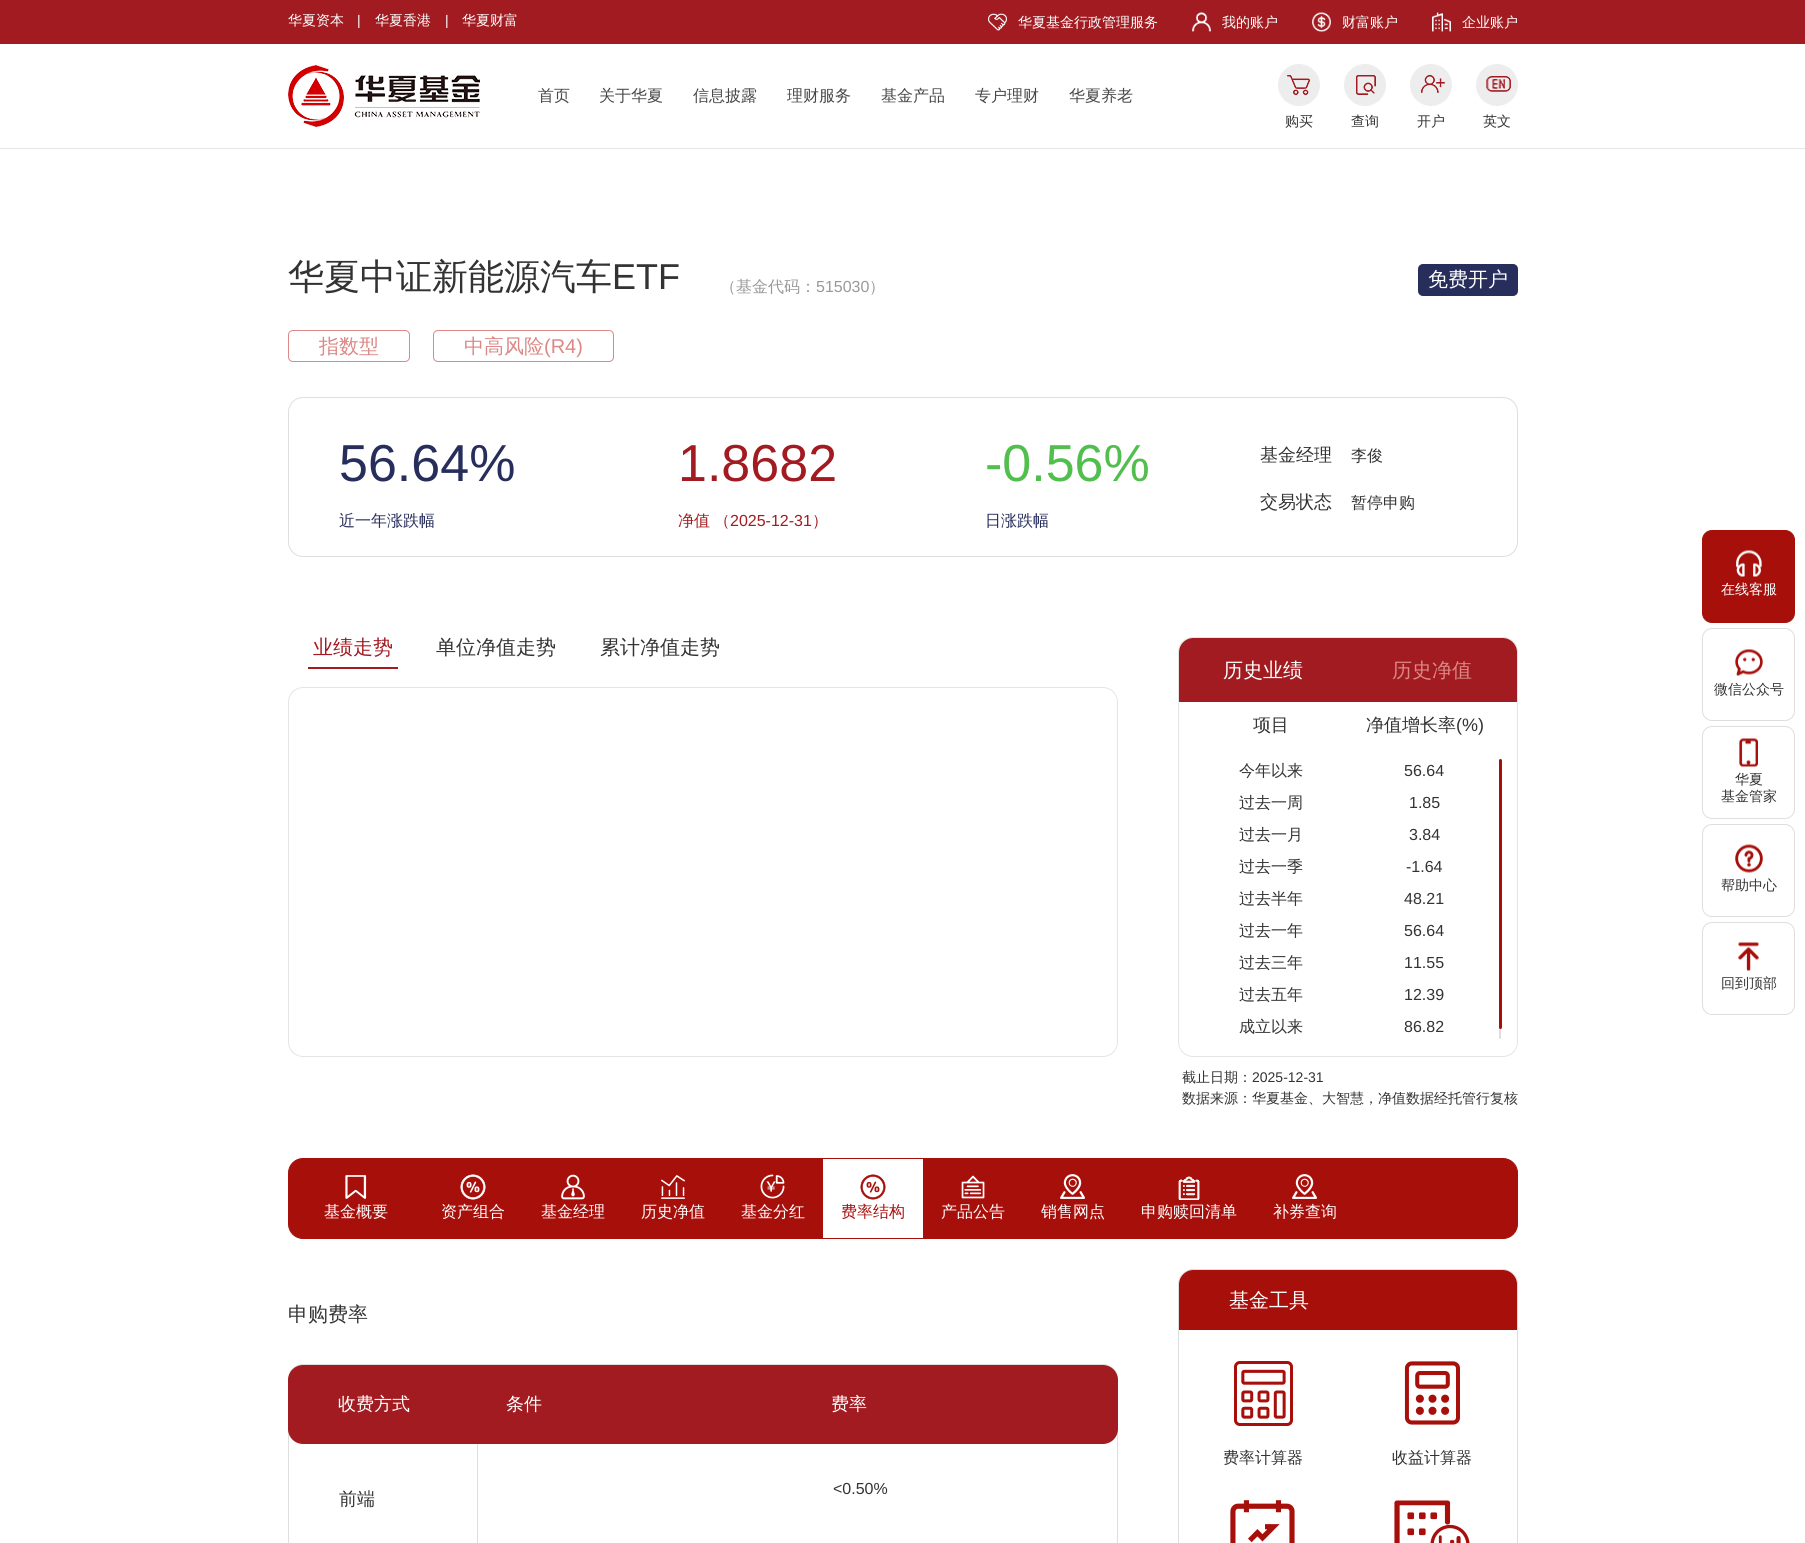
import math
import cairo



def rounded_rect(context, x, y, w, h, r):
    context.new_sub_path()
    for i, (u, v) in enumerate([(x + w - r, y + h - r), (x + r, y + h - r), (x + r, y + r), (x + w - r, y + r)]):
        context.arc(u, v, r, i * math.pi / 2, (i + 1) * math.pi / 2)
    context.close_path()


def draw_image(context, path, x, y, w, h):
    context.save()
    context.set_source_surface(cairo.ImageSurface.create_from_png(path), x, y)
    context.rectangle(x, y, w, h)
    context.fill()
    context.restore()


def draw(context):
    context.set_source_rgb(1, 1, 1)
    context.paint()
    context.set_source_rgb(229 / 255, 229 / 255, 229 / 255)
    context.rectangle(0, 148, 1805, 1)
    context.fill()
    context.set_source_rgb(161 / 255, 27 / 255, 33 / 255)
    context.rectangle(0, 0, 1805, 44)
    context.fill()
    draw_image(context, "images/1.png", 988, 13, 19, 18)
    draw_image(context, "images/2.png", 1192, 12, 19, 20)
    draw_image(context, "images/3.png", 1312, 12, 19, 20)
    draw_image(context, "images/4.png", 1432, 12, 19, 20)
    draw_image(context, "images/5.png", 288, 65, 192, 62)
    context.set_source_rgb(237 / 255, 237 / 255, 237 / 255)
    context.arc(1299, 85, 21, 0, 2 * math.pi)
    context.fill()
    draw_image(context, "images/6.png", 1287, 75, 23, 20)
    context.arc(1365, 85, 21, 0, 2 * math.pi)
    context.fill()
    draw_image(context, "images/7.png", 1356, 75, 20, 20)
    context.arc(1431, 85, 21, 0, 2 * math.pi)
    context.fill()
    draw_image(context, "images/8.png", 1421, 75, 24, 18)
    context.arc(1497, 85, 21, 0, 2 * math.pi)
    context.fill()
    draw_image(context, "images/9.png", 1486, 76, 25, 16)
    rounded_rect(context, 288.5, 330.5, 121, 31, 4.5)
    context.set_source_rgb(219 / 255, 136 / 255, 134 / 255)
    context.set_line_width(1)
    context.stroke()
    rounded_rect(context, 433.5, 330.5, 180, 31, 4.5)
    context.stroke()
    context.set_source_rgb(39 / 255, 46 / 255, 92 / 255)
    rounded_rect(context, 1418, 264, 100, 32, 5)
    context.fill()
    rounded_rect(context, 288.5, 397.5, 1229, 159, 14.5)
    context.set_source_rgb(222 / 255, 222 / 255, 222 / 255)
    context.stroke()
    context.set_source_rgb(161 / 255, 27 / 255, 33 / 255)
    context.rectangle(308, 667, 90, 2)
    context.fill()
    rounded_rect(context, 288.5, 687.5, 829, 369, 14.5)
    context.set_source_rgb(229 / 255, 229 / 255, 229 / 255)
    context.stroke()
    rounded_rect(context, 1178.5, 637.5, 339, 419, 14.5)
    context.stroke()
    context.set_source_rgb(161 / 255, 27 / 255, 33 / 255)
    context.new_path()
    context.move_to(1193, 638)
    context.line_to(1503, 638)
    context.curve_to(1510.5, 638, 1517, 644.5, 1517, 652)
    context.line_to(1517, 702)
    context.line_to(1179, 702)
    context.line_to(1179, 652)
    context.curve_to(1179, 644.5, 1185.5, 638, 1193, 638)
    context.close_path()
    context.fill()
    context.set_source_rgb(222 / 255, 222 / 255, 222 / 255)
    rounded_rect(context, 1499, 759, 2, 280, 1)
    context.fill()
    context.set_source_rgb(167 / 255, 15 / 255, 11 / 255)
    rounded_rect(context, 1499, 759, 3, 270, 1.5)
    context.fill()
    rounded_rect(context, 288.5, 1158.5, 1229, 80, 14.5)
    context.fill_preserve()
    context.stroke()
    draw_image(context, "images/10.png", 345, 1175, 22, 24)
    draw_image(context, "images/11.png", 460, 1174, 26, 26)
    draw_image(context, "images/12.png", 561, 1174, 24, 26)
    draw_image(context, "images/13.png", 661, 1175, 24, 24)
    draw_image(context, "images/14.png", 760, 1174, 25, 25)
    context.set_source_rgb(1, 1, 1)
    context.rectangle(823, 1159, 100, 79)
    context.fill()
    draw_image(context, "images/15.png", 860, 1174, 26, 26)
    draw_image(context, "images/16.png", 961, 1175, 24, 24)
    draw_image(context, "images/17.png", 1060, 1174, 25, 25)
    draw_image(context, "images/18.png", 1178, 1176, 22, 24)
    draw_image(context, "images/17.png", 1292, 1174, 25, 25)
    rounded_rect(context, 288.5, 1364.5, 829, 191, 14.5)
    context.set_source_rgb(222 / 255, 222 / 255, 222 / 255)
    context.stroke()
    context.set_source_rgb(161 / 255, 27 / 255, 33 / 255)
    rounded_rect(context, 288, 1365, 830, 79, 15)
    context.fill()
    context.set_source_rgb(222 / 255, 222 / 255, 222 / 255)
    context.rectangle(477, 1444, 1, 99)
    context.fill()
    context.set_fill_rule(cairo.FillRule.EVEN_ODD)
    context.new_path()
    context.move_to(1193, 1269)
    context.line_to(1503, 1269)
    context.curve_to(1511, 1269, 1518, 1276, 1518, 1284)
    context.line_to(1518, 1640)
    context.line_to(1178, 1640)
    context.line_to(1178, 1284)
    context.curve_to(1178, 1276, 1185, 1269, 1193, 1269)
    context.close_path()
    context.move_to(1193, 1270)
    context.line_to(1503, 1270)
    context.curve_to(1511, 1270, 1517, 1276, 1517, 1284)
    context.line_to(1517, 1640)
    context.line_to(1179, 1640)
    context.line_to(1179, 1284)
    context.curve_to(1179, 1276, 1185, 1270, 1193, 1270)
    context.close_path()
    context.fill()
    context.set_source_rgb(167 / 255, 15 / 255, 11 / 255)
    context.new_path()
    context.move_to(1193, 1270)
    context.line_to(1503, 1270)
    context.curve_to(1510.5, 1270, 1517, 1276.5, 1517, 1284)
    context.line_to(1517, 1330)
    context.line_to(1179, 1330)
    context.line_to(1179, 1284)
    context.curve_to(1179, 1276.5, 1185.5, 1270, 1193, 1270)
    context.close_path()
    context.fill()
    draw_image(context, "images/19.png", 1234, 1361, 59, 65)
    draw_image(context, "images/20.png", 1404, 1361, 56, 64)
    draw_image(context, "images/21.png", 1230, 1500, 65, 43)
    draw_image(context, "images/22.png", 1394, 1500, 76, 43)
    rounded_rect(context, 1702.5, 530.5, 92, 92, 9.5)
    context.fill_preserve()
    context.stroke()
    draw_image(context, "images/23.png", 1736, 550, 26, 27)
    rounded_rect(context, 1702.5, 628.5, 92, 92, 9.5)
    context.set_source_rgb(222 / 255, 222 / 255, 222 / 255)
    context.stroke()
    draw_image(context, "images/24.png", 1735, 649, 28, 27)
    rounded_rect(context, 1702.5, 726.5, 92, 92, 9.5)
    context.stroke()
    draw_image(context, "images/25.png", 1739, 738, 19, 29)
    rounded_rect(context, 1702.5, 824.5, 92, 92, 9.5)
    context.stroke()
    draw_image(context, "images/26.png", 1735, 844, 28, 29)
    rounded_rect(context, 1702.5, 922.5, 92, 92, 9.5)
    context.stroke()
    draw_image(context, "images/27.png", 1738, 942, 21, 29)
    context.select_font_face("WenQuanYi Zen Hei Medium")
    context.set_font_size(14)
    context.set_source_rgb(1, 1, 1)
    context.move_to(288, 25)
    context.show_text("华夏资本")
    context.select_font_face("Liberation Sans")
    context.move_to(357, 25)
    context.show_text("|")
    context.select_font_face("WenQuanYi Zen Hei Medium")
    context.move_to(375, 25)
    context.show_text("华夏香港")
    context.select_font_face("Liberation Sans")
    context.move_to(445, 25)
    context.show_text("|")
    context.select_font_face("WenQuanYi Zen Hei Medium")
    context.move_to(462, 25)
    context.show_text("华夏财富")
    context.move_to(1018, 27)
    context.show_text("华夏基金行政管理服务")
    context.move_to(1222, 27)
    context.show_text("我的账户")
    context.move_to(1342, 27)
    context.show_text("财富账户")
    context.move_to(1462, 27)
    context.show_text("企业账户")
    context.set_font_size(16)
    context.set_source_rgb(71 / 255, 71 / 255, 71 / 255)
    context.move_to(538, 101)
    context.show_text("首页")
    context.move_to(599, 101)
    context.show_text("关于华夏")
    context.move_to(693, 101)
    context.show_text("信息披露")
    context.move_to(787, 101)
    context.show_text("理财服务")
    context.move_to(881, 101)
    context.show_text("基金产品")
    context.move_to(975, 101)
    context.show_text("专户理财")
    context.move_to(1069, 101)
    context.show_text("华夏养老")
    context.set_font_size(14)
    context.set_source_rgb(51 / 255, 51 / 255, 51 / 255)
    context.move_to(1285, 126)
    context.show_text("购买")
    context.move_to(1351, 126)
    context.show_text("查询")
    context.move_to(1417, 126)
    context.show_text("开户")
    context.move_to(1483, 126)
    context.show_text("英文")
    context.set_font_size(36)
    context.move_to(288, 289)
    context.show_text("华夏中证新能源汽车")
    context.select_font_face("Liberation Sans")
    context.move_to(612, 289)
    context.show_text("ETF")
    context.select_font_face("WenQuanYi Zen Hei Medium")
    context.set_font_size(16)
    context.set_source_rgb(153 / 255, 153 / 255, 153 / 255)
    context.move_to(720, 292)
    context.show_text("（基金代码：")
    context.select_font_face("Liberation Sans")
    context.move_to(816, 292)
    context.show_text("515030")
    context.select_font_face("WenQuanYi Zen Hei Medium")
    context.move_to(869, 292)
    context.show_text("）")
    context.set_font_size(20)
    context.set_source_rgb(219 / 255, 136 / 255, 134 / 255)
    context.move_to(319, 353)
    context.show_text("指数型")
    context.move_to(464, 353)
    context.show_text("中高风险")
    context.select_font_face("Liberation Sans")
    context.move_to(544, 353)
    context.show_text("(R4)")
    context.select_font_face("WenQuanYi Zen Hei Medium")
    context.set_source_rgb(1, 1, 1)
    context.move_to(1428, 286)
    context.show_text("免费开户")
    context.select_font_face("Liberation Sans")
    context.set_font_size(52)
    context.set_source_rgb(39 / 255, 46 / 255, 92 / 255)
    context.move_to(339, 481)
    context.show_text("56.64%")
    context.select_font_face("WenQuanYi Zen Hei Medium")
    context.set_font_size(16)
    context.move_to(339, 526)
    context.show_text("近一年涨跌幅")
    context.select_font_face("Liberation Sans")
    context.set_font_size(52)
    context.set_source_rgb(161 / 255, 27 / 255, 33 / 255)
    context.move_to(678, 481)
    context.show_text("1.8682")
    context.select_font_face("WenQuanYi Zen Hei Medium")
    context.set_font_size(16)
    context.move_to(678, 526)
    context.show_text("净值")
    context.move_to(714, 526)
    context.show_text("（")
    context.select_font_face("Liberation Sans")
    context.move_to(730, 526)
    context.show_text("2025-12-31")
    context.select_font_face("WenQuanYi Zen Hei Medium")
    context.move_to(812, 526)
    context.show_text("）")
    context.select_font_face("Liberation Sans")
    context.set_font_size(52)
    context.set_source_rgb(82 / 255, 190 / 255, 77 / 255)
    context.move_to(985, 481)
    context.show_text("-0.56%")
    context.select_font_face("WenQuanYi Zen Hei Medium")
    context.set_font_size(16)
    context.set_source_rgb(39 / 255, 46 / 255, 92 / 255)
    context.move_to(985, 526)
    context.show_text("日涨跌幅")
    context.set_font_size(18)
    context.set_source_rgb(51 / 255, 51 / 255, 51 / 255)
    context.move_to(1260, 461)
    context.show_text("基金经理")
    context.set_font_size(16)
    context.move_to(1351, 461)
    context.show_text("李俊")
    context.set_font_size(18)
    context.move_to(1260, 508)
    context.show_text("交易状态")
    context.set_font_size(16)
    context.move_to(1351, 508)
    context.show_text("暂停申购")
    context.set_font_size(20)
    context.set_source_rgb(161 / 255, 27 / 255, 33 / 255)
    context.move_to(313, 654)
    context.show_text("业绩走势")
    context.set_source_rgb(51 / 255, 51 / 255, 51 / 255)
    context.move_to(436, 654)
    context.show_text("单位净值走势")
    context.move_to(600, 654)
    context.show_text("累计净值走势")
    context.set_source_rgb(1, 1, 1)
    context.move_to(1223, 677)
    context.show_text("历史业绩")
    context.set_source_rgb(219 / 255, 136 / 255, 134 / 255)
    context.move_to(1392, 677)
    context.show_text("历史净值")
    context.set_font_size(18)
    context.set_source_rgb(51 / 255, 51 / 255, 51 / 255)
    context.move_to(1253, 731)
    context.show_text("项目")
    context.move_to(1366, 731)
    context.show_text("净值增长率")
    context.select_font_face("Liberation Sans")
    context.move_to(1456, 731)
    context.show_text("(%)")
    context.select_font_face("WenQuanYi Zen Hei Medium")
    context.set_font_size(16)
    context.move_to(1239, 776)
    context.show_text("今年以来")
    context.select_font_face("Liberation Sans")
    context.move_to(1404, 776)
    context.show_text("56.64")
    context.select_font_face("WenQuanYi Zen Hei Medium")
    context.move_to(1239, 808)
    context.show_text("过去一周")
    context.select_font_face("Liberation Sans")
    context.move_to(1409, 808)
    context.show_text("1.85")
    context.select_font_face("WenQuanYi Zen Hei Medium")
    context.move_to(1239, 840)
    context.show_text("过去一月")
    context.select_font_face("Liberation Sans")
    context.move_to(1409, 840)
    context.show_text("3.84")
    context.select_font_face("WenQuanYi Zen Hei Medium")
    context.move_to(1239, 872)
    context.show_text("过去一季")
    context.select_font_face("Liberation Sans")
    context.move_to(1406, 872)
    context.show_text("-1.64")
    context.select_font_face("WenQuanYi Zen Hei Medium")
    context.move_to(1239, 904)
    context.show_text("过去半年")
    context.select_font_face("Liberation Sans")
    context.move_to(1404, 904)
    context.show_text("48.21")
    context.select_font_face("WenQuanYi Zen Hei Medium")
    context.move_to(1239, 936)
    context.show_text("过去一年")
    context.select_font_face("Liberation Sans")
    context.move_to(1404, 936)
    context.show_text("56.64")
    context.select_font_face("WenQuanYi Zen Hei Medium")
    context.move_to(1239, 968)
    context.show_text("过去三年")
    context.select_font_face("Liberation Sans")
    context.move_to(1404, 968)
    context.show_text("11.55")
    context.select_font_face("WenQuanYi Zen Hei Medium")
    context.move_to(1239, 1000)
    context.show_text("过去五年")
    context.select_font_face("Liberation Sans")
    context.move_to(1404, 1000)
    context.show_text("12.39")
    context.select_font_face("WenQuanYi Zen Hei Medium")
    context.move_to(1239, 1032)
    context.show_text("成立以来")
    context.select_font_face("Liberation Sans")
    context.move_to(1404, 1032)
    context.show_text("86.82")
    context.select_font_face("WenQuanYi Zen Hei Medium")
    context.set_font_size(14)
    context.move_to(1182, 1082)
    context.show_text("截止日期：")
    context.select_font_face("Liberation Sans")
    context.move_to(1252, 1082)
    context.show_text("2025-12-31")
    context.select_font_face("WenQuanYi Zen Hei Medium")
    context.move_to(1182, 1103)
    context.show_text("数据来源：华夏基金、大智慧，净值数据经托管行复核")
    context.set_font_size(16)
    context.set_source_rgb(1, 1, 1)
    context.move_to(324, 1217)
    context.show_text("基金概要")
    context.move_to(441, 1217)
    context.show_text("资产组合")
    context.move_to(541, 1217)
    context.show_text("基金经理")
    context.move_to(641, 1217)
    context.show_text("历史净值")
    context.move_to(741, 1217)
    context.show_text("基金分红")
    context.set_source_rgb(167 / 255, 15 / 255, 11 / 255)
    context.move_to(841, 1217)
    context.show_text("费率结构")
    context.set_source_rgb(1, 1, 1)
    context.move_to(941, 1217)
    context.show_text("产品公告")
    context.move_to(1041, 1217)
    context.show_text("销售网点")
    context.move_to(1141, 1217)
    context.show_text("申购赎回清单")
    context.move_to(1273, 1217)
    context.show_text("补券查询")
    context.set_font_size(20)
    context.set_source_rgb(51 / 255, 51 / 255, 51 / 255)
    context.move_to(288, 1321)
    context.show_text("申购费率")
    context.set_font_size(18)
    context.set_source_rgb(1, 1, 1)
    context.move_to(338, 1410)
    context.show_text("收费方式")
    context.move_to(506, 1410)
    context.show_text("条件")
    context.move_to(831, 1410)
    context.show_text("费率")
    context.select_font_face("Liberation Sans")
    context.set_font_size(16)
    context.set_source_rgb(51 / 255, 51 / 255, 51 / 255)
    context.move_to(833, 1494)
    context.show_text("<0.50%")
    context.select_font_face("WenQuanYi Zen Hei Medium")
    context.set_font_size(18)
    context.move_to(339, 1505)
    context.show_text("前端")
    context.set_font_size(20)
    context.set_source_rgb(1, 1, 1)
    context.move_to(1229, 1307)
    context.show_text("基金工具")
    context.set_font_size(16)
    context.set_source_rgb(51 / 255, 51 / 255, 51 / 255)
    context.move_to(1223, 1463)
    context.show_text("费率计算器")
    context.move_to(1392, 1463)
    context.show_text("收益计算器")
    context.set_font_size(14)
    context.set_source_rgb(1, 1, 1)
    context.move_to(1721, 594)
    context.show_text("在线客服")
    context.set_source_rgb(51 / 255, 51 / 255, 51 / 255)
    context.move_to(1714, 694)
    context.show_text("微信公众号")
    context.move_to(1735, 784)
    context.show_text("华夏")
    context.move_to(1721, 801)
    context.show_text("基金管家")
    context.move_to(1721, 890)
    context.show_text("帮助中心")
    context.move_to(1721, 988)
    context.show_text("回到顶部")


surface = cairo.ImageSurface(cairo.Format.RGB24, 1805, 1543)
context = cairo.Context(surface)
options = cairo.FontOptions()
options.set_hint_metrics(cairo.HintMetrics.OFF)
options.set_hint_style(cairo.HintStyle.NONE)
context.set_font_options(options)
context.set_miter_limit(4)
draw(context)
surface.write_to_png("out.png")
